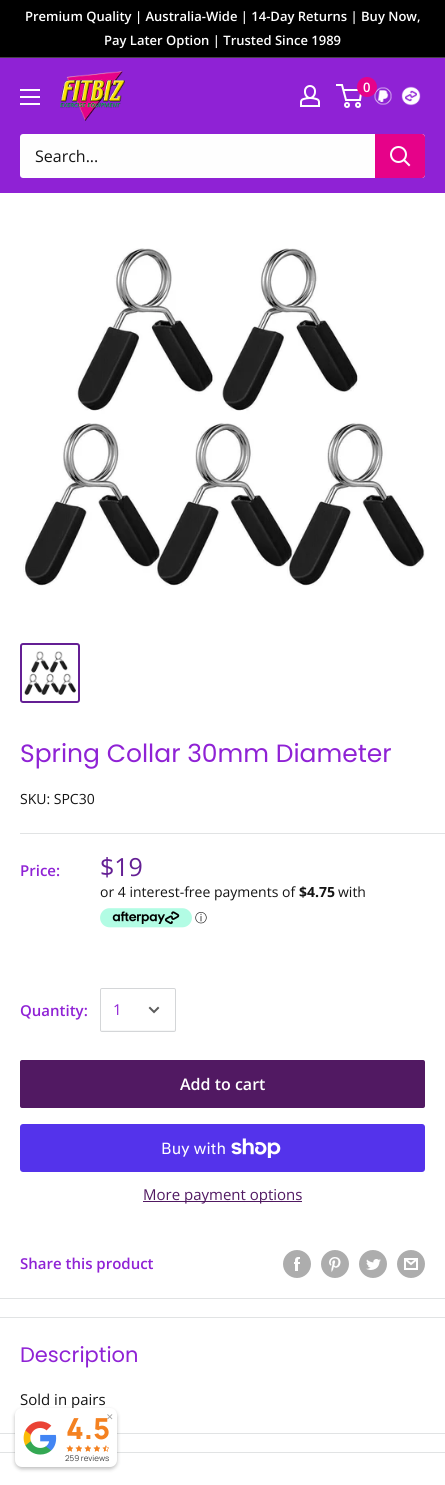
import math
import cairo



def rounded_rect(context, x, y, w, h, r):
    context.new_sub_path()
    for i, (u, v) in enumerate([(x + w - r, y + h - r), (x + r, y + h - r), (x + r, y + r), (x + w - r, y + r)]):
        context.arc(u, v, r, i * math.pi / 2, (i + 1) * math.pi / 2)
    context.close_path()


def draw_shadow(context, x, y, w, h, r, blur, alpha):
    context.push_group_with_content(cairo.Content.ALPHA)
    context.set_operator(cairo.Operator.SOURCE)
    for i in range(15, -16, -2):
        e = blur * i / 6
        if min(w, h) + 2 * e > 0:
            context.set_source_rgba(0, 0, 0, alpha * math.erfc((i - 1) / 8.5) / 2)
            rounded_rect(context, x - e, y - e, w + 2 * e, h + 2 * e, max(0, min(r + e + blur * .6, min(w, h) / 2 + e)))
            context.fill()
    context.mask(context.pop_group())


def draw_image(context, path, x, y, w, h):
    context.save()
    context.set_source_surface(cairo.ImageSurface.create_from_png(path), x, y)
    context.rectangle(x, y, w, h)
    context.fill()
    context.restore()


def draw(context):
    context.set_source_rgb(1, 1, 1)
    context.paint()
    context.set_source_rgb(0, 0, 0)
    context.rectangle(0, 0, 445, 57)
    context.fill()
    context.set_source_rgb(71 / 255, 66 / 255, 71 / 255)
    context.rectangle(0, 57, 445, 1)
    context.fill()
    context.set_source_rgb(143 / 255, 34 / 255, 213 / 255)
    context.rectangle(0, 58, 445, 135)
    context.fill()
    draw_image(context, "images/1.png", 60, 71, 65, 50)
    draw_image(context, "images/2.png", 300, 85, 20, 22)
    context.arc(347, 105, 2, 0, 2 * math.pi)
    context.set_source_rgb(1, 1, 1)
    context.stroke()
    context.arc(358, 105, 2, 0, 2 * math.pi)
    context.stroke()
    context.new_path()
    context.move_to(343.5, 90)
    context.line_to(361.5, 90)
    context.line_to(360, 100)
    context.line_to(346, 100)
    context.line_to(342, 85)
    context.line_to(336, 85)
    context.stroke()
    draw_image(context, "images/3.png", 374, 87, 18, 18)
    context.set_source_rgb(230 / 255, 2 / 255, 137 / 255)
    context.arc(367, 87, 10, 0, 2 * math.pi)
    context.fill()
    draw_image(context, "images/4.png", 401, 86, 20, 20)
    draw_image(context, "images/5.png", 20, 89, 20, 16)
    context.set_source_rgb(254 / 255, 254 / 255, 254 / 255)
    rounded_rect(context, 20, 134, 405, 44, 3)
    context.fill()
    context.set_source_rgb(230 / 255, 2 / 255, 137 / 255)
    context.new_path()
    context.move_to(375, 134)
    context.line_to(422, 134)
    context.curve_to(423.5, 134, 425, 135.5, 425, 137)
    context.line_to(425, 175)
    context.curve_to(425, 176.5, 423.5, 178, 422, 178)
    context.line_to(375, 178)
    context.close_path()
    context.fill()
    context.new_path()
    context.move_to(409, 165)
    context.line_to(404, 160)
    context.set_source_rgb(254 / 255, 254 / 255, 254 / 255)
    context.set_line_cap(cairo.LineCap.SQUARE)
    context.stroke()
    context.arc(398.5, 154.5, 7.5, 0, 2 * math.pi)
    context.set_line_cap(cairo.LineCap.BUTT)
    context.stroke()
    draw_image(context, "images/6.png", 23, 248, 402, 338)
    rounded_rect(context, 21, 644, 58, 58, 2)
    context.set_source_rgb(100 / 255, 31 / 255, 148 / 255)
    context.stroke()
    draw_image(context, "images/7.png", 24, 651, 52, 44)
    context.set_source_rgb(225 / 255, 227 / 255, 228 / 255)
    context.rectangle(0, 1298, 445, 1)
    context.fill()
    context.rectangle(20, 833, 425, 1)
    context.fill()
    draw_image(context, "images/8.png", 100, 908, 92, 20)
    context.set_source_rgb(246 / 255, 247 / 255, 247 / 255)
    context.new_path()
    context.move_to(101, 1029)
    context.line_to(102, 1031)
    context.line_to(174, 1031)
    context.curve_to(175, 1031, 175, 1030, 175, 1029)
    context.line_to(174, 1030)
    context.line_to(102, 1030)
    context.close_path()
    context.fill()
    rounded_rect(context, 100.5, 988.5, 75, 43, 1.5)
    context.set_source_rgb(212 / 255, 214 / 255, 216 / 255)
    context.set_line_width(1)
    context.stroke()
    context.new_path()
    context.move_to(158, 1008)
    context.line_to(154, 1012)
    context.line_to(150, 1008)
    context.set_source_rgb(91 / 255, 91 / 255, 91 / 255)
    context.set_line_width(2)
    context.set_line_cap(cairo.LineCap.SQUARE)
    context.stroke()
    context.set_source_rgb(81 / 255, 25 / 255, 98 / 255)
    rounded_rect(context, 20, 1060, 405, 48, 2)
    context.fill()
    context.set_source_rgb(84 / 255, 51 / 255, 235 / 255)
    rounded_rect(context, 20, 1124, 405, 48, 3)
    context.fill()
    draw_image(context, "images/9.png", 231, 1138, 50, 20)
    context.set_source_rgb(81 / 255, 25 / 255, 98 / 255)
    context.rectangle(143, 1201, 159, 1)
    context.fill()
    draw_image(context, "images/10.png", 283, 1250, 28, 28)
    draw_image(context, "images/11.png", 321, 1250, 28, 28)
    draw_image(context, "images/12.png", 359, 1250, 28, 28)
    draw_image(context, "images/13.png", 397, 1250, 28, 28)
    context.set_source_rgb(225 / 255, 227 / 255, 228 / 255)
    context.rectangle(0, 1317, 445, 1)
    context.fill()
    context.rectangle(0, 1433, 445, 1)
    context.fill()
    context.rectangle(0, 1452, 445, 1)
    context.fill()
    context.set_source_rgb(0, 0, 0)
    draw_shadow(context, 15, 1410, 102, 59, 7, 2, 0.26)
    context.select_font_face("Open Sans SemiBold")
    context.set_font_size(13)
    context.set_source_rgb(1, 1, 1)
    context.move_to(25, 21)
    context.show_text("Premium Quality | Australia-Wide | 14-Day Returns | Buy Now,")
    context.move_to(104, 45)
    context.show_text("Pay Later Option | Trusted Since 1989")
    context.move_to(363, 92)
    context.show_text("0")
    context.select_font_face("Open Sans")
    context.set_font_size(16)
    context.set_source_rgb(20 / 255, 20 / 255, 20 / 255)
    context.move_to(35, 162)
    context.show_text("Search...")
    context.select_font_face("Poppins")
    context.set_font_size(25)
    context.set_source_rgb(143 / 255, 34 / 255, 213 / 255)
    context.move_to(20, 762)
    context.show_text("Spring Collar 30mm Diameter")
    context.select_font_face("Open Sans")
    context.set_font_size(14)
    context.set_source_rgb(20 / 255, 20 / 255, 20 / 255)
    context.move_to(20, 804)
    context.show_text("SKU: SPC30")
    context.select_font_face("Open Sans SemiBold")
    context.set_font_size(15)
    context.set_source_rgb(143 / 255, 34 / 255, 213 / 255)
    context.move_to(20, 876)
    context.show_text("Price:")
    context.select_font_face("Open Sans")
    context.set_font_size(25)
    context.set_source_rgb(100 / 255, 31 / 255, 148 / 255)
    context.move_to(100, 876)
    context.show_text("$19")
    context.set_font_size(14)
    context.set_source_rgb(20 / 255, 20 / 255, 20 / 255)
    context.move_to(100, 897)
    context.show_text("or 4 interest-free payments of")
    context.select_font_face("Open Sans", cairo.FontSlant.NORMAL, cairo.FontWeight.BOLD)
    context.move_to(299, 897)
    context.show_text("$4.75")
    context.select_font_face("Open Sans")
    context.move_to(338, 897)
    context.show_text("with")
    context.select_font_face("WenQuanYi Zen Hei Medium")
    context.set_font_size(12)
    context.move_to(195, 922)
    context.show_text("ⓘ")
    context.select_font_face("Open Sans SemiBold")
    context.set_font_size(15)
    context.set_source_rgb(143 / 255, 34 / 255, 213 / 255)
    context.move_to(20, 1016)
    context.show_text("Quantity:")
    context.select_font_face("Open Sans")
    context.move_to(113, 1015)
    context.show_text("1")
    context.select_font_face("Open Sans SemiBold")
    context.set_font_size(16)
    context.set_source_rgb(1, 1, 1)
    context.move_to(180, 1090)
    context.show_text("Add to cart")
    context.select_font_face("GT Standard")
    context.move_to(161, 1154)
    context.show_text("Buy with")
    context.select_font_face("Open Sans")
    context.set_font_size(15)
    context.set_source_rgb(81 / 255, 25 / 255, 98 / 255)
    context.move_to(143, 1200)
    context.show_text("More payment options")
    context.select_font_face("Open Sans SemiBold")
    context.set_source_rgb(143 / 255, 34 / 255, 213 / 255)
    context.move_to(20, 1269)
    context.show_text("Share this product")
    context.select_font_face("Poppins")
    context.set_font_size(21)
    context.move_to(20, 1362)
    context.show_text("Description")
    context.select_font_face("Open Sans")
    context.set_font_size(15)
    context.set_source_rgb(20 / 255, 20 / 255, 20 / 255)
    context.move_to(20, 1405)
    context.show_text("Sold in pairs")
    context.set_source_rgb(1, 1, 1)
    rounded_rect(context, 15, 1408, 102, 59, 7)
    context.fill()
    context.select_font_face("DejaVu Sans")
    context.set_font_size(9)
    context.set_source_rgb(160 / 255, 160 / 255, 160 / 255)
    context.move_to(106, 1420)
    context.show_text("✕")
    draw_image(context, "images/14.png", 23, 1421, 34, 34)
    context.select_font_face("Manrope ExtraBold")
    context.set_font_size(29)
    context.set_source_rgb(244 / 255, 129 / 255, 32 / 255)
    context.move_to(66, 1439)
    context.show_text("4.5")
    draw_image(context, "images/15.png", 66, 1445, 7, 7)
    draw_image(context, "images/15.png", 75, 1445, 7, 7)
    draw_image(context, "images/15.png", 84, 1445, 7, 7)
    draw_image(context, "images/15.png", 93, 1445, 7, 7)
    draw_image(context, "images/16.png", 102, 1445, 7, 7)
    context.select_font_face("Manrope")
    context.set_font_size(8)
    context.set_source_rgb(64 / 255, 64 / 255, 64 / 255)
    context.move_to(65, 1461)
    context.show_text("259 reviews")


surface = cairo.ImageSurface(cairo.Format.RGB24, 445, 1485)
context = cairo.Context(surface)
options = cairo.FontOptions()
options.set_hint_metrics(cairo.HintMetrics.OFF)
options.set_hint_style(cairo.HintStyle.NONE)
context.set_font_options(options)
context.set_miter_limit(4)
draw(context)
surface.write_to_png("out.png")
